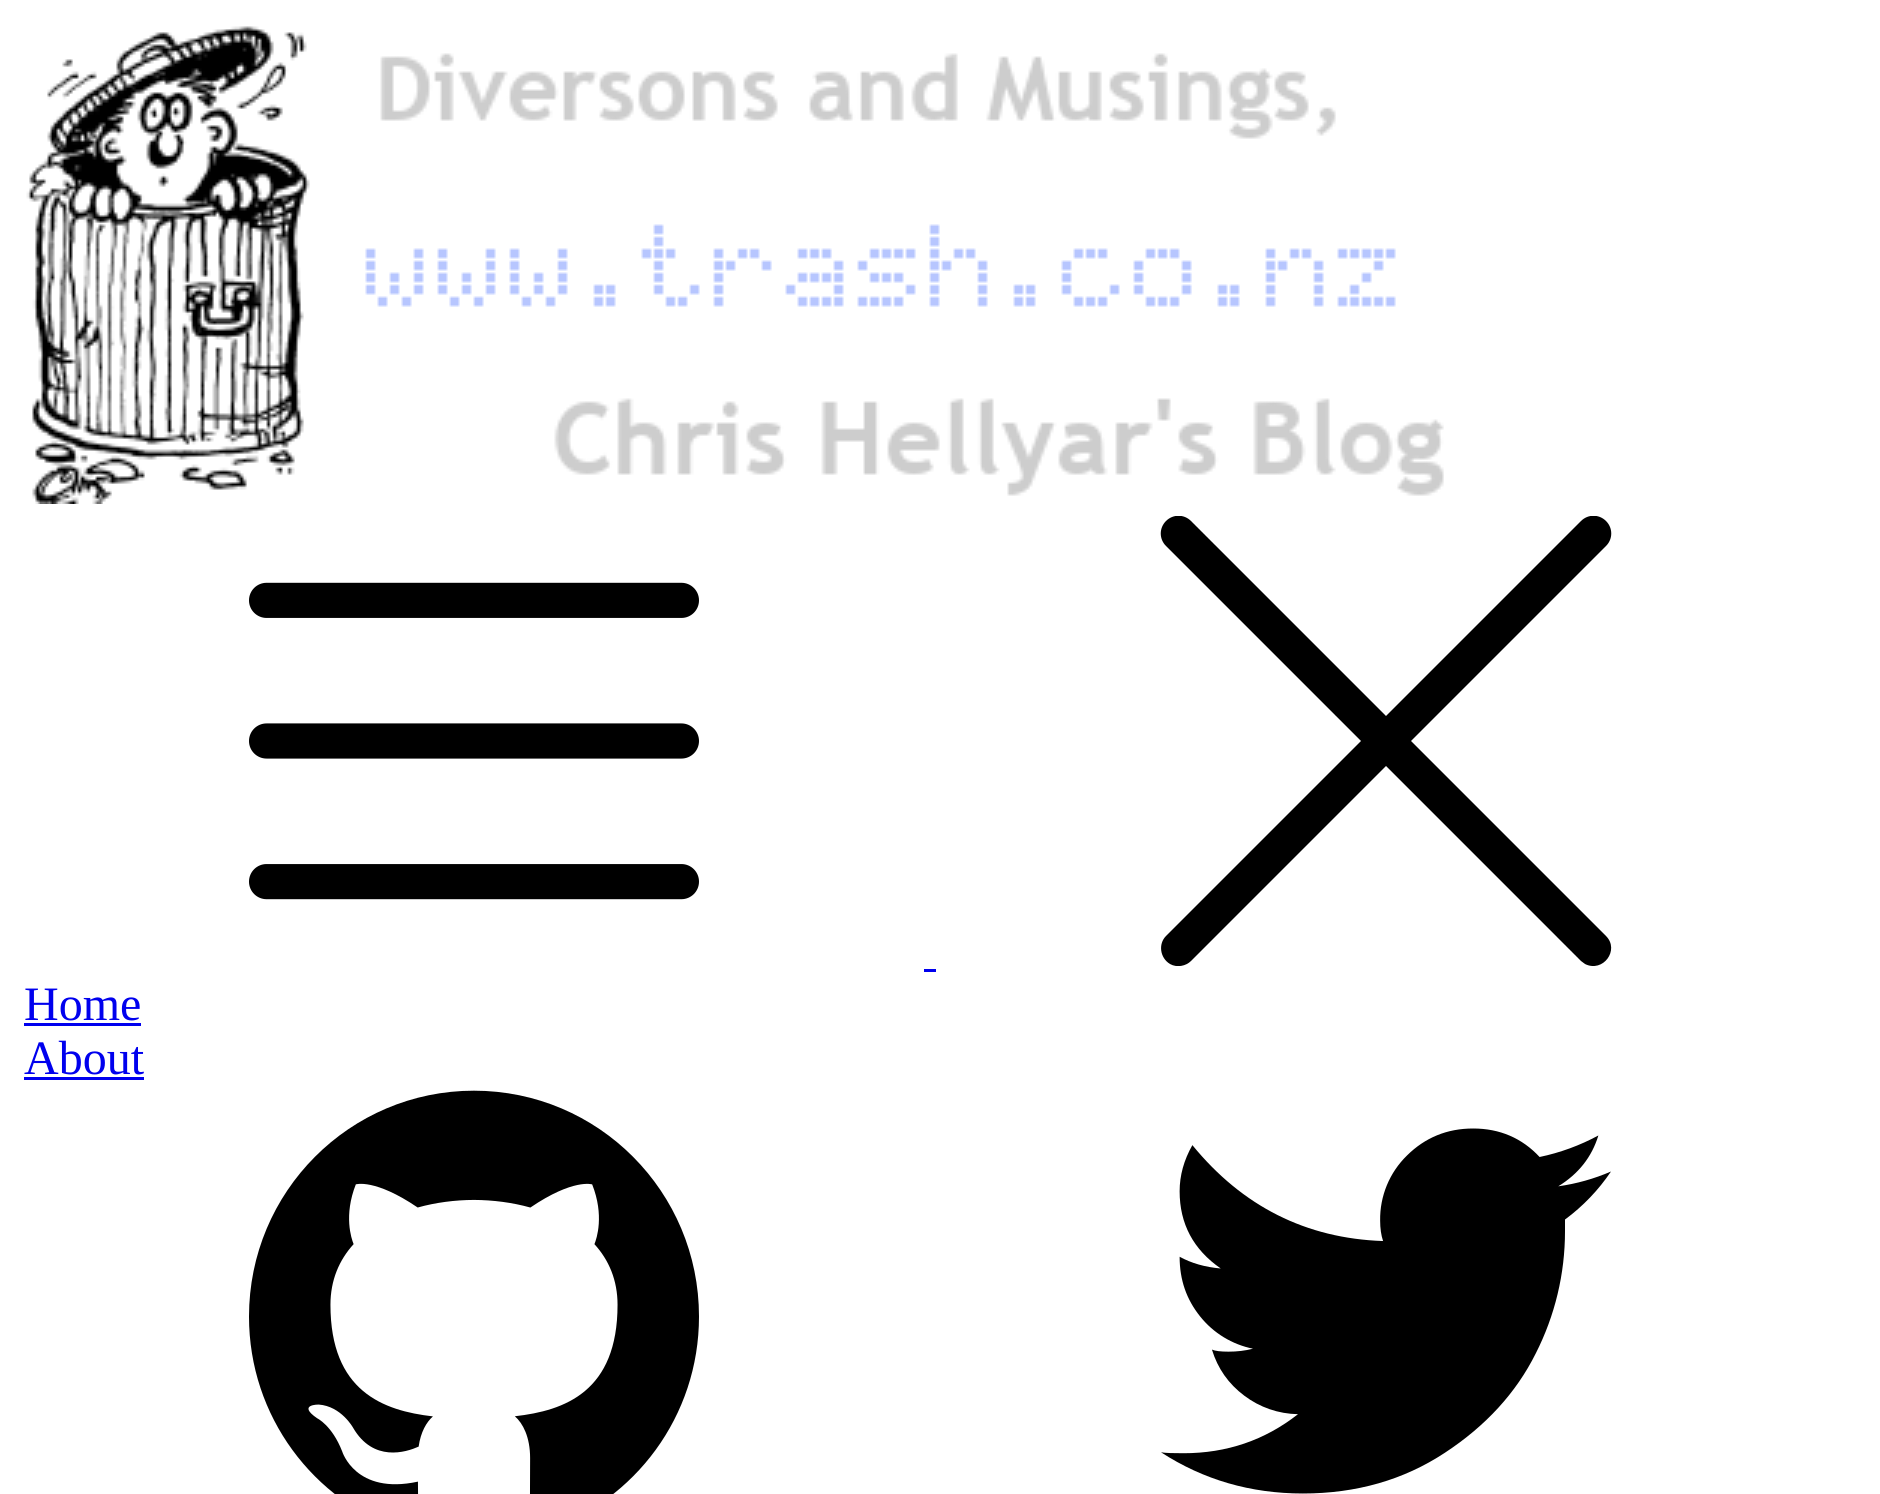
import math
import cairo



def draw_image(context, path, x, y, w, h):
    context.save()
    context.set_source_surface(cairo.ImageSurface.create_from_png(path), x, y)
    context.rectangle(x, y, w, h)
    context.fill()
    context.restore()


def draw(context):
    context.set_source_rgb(1, 1, 1)
    context.paint()
    draw_image(context, "images/1.png", 26, 26, 1418, 478)
    draw_image(context, "images/2.png", 249, 582, 450, 318)
    context.save()
    context.rectangle(936, 516, 900, 450)
    context.clip()
    context.set_source_rgb(0, 0, 0)
    context.new_path()
    context.move_to(1411, 741)
    context.line_to(1606, 546)
    context.curve_to(1613, 539, 1613, 528, 1606, 521)
    context.curve_to(1599, 514, 1588, 514, 1581, 521)
    context.line_to(1386, 716)
    context.line_to(1191, 521)
    context.curve_to(1184, 514, 1173, 514, 1166, 521)
    context.curve_to(1159, 528, 1159, 539, 1166, 546)
    context.line_to(1361, 741)
    context.line_to(1166, 936)
    context.curve_to(1158, 944, 1160, 958, 1170, 964)
    context.curve_to(1177, 968, 1186, 966, 1191, 961)
    context.line_to(1386, 766)
    context.line_to(1581, 961)
    context.line_to(1585, 964)
    context.curve_to(1603, 973, 1620, 950, 1606, 936)
    context.close_path()
    context.fill()
    context.restore()
    context.set_source_rgb(0, 0, 238 / 255)
    context.rectangle(924, 969, 12, 3)
    context.fill()
    context.rectangle(24, 1023, 117, 3)
    context.fill()
    context.rectangle(24, 1077, 120, 3)
    context.fill()
    draw_image(context, "images/3.png", 249, 1090, 450, 404)
    draw_image(context, "images/4.png", 1161, 1128, 450, 366)
    context.select_font_face("Liberation Serif")
    context.set_font_size(48)
    context.move_to(24, 1020)
    context.show_text("Home")
    context.move_to(24, 1074)
    context.show_text("About")


surface = cairo.ImageSurface(cairo.Format.RGB24, 1880, 1494)
context = cairo.Context(surface)
options = cairo.FontOptions()
options.set_hint_metrics(cairo.HintMetrics.OFF)
options.set_hint_style(cairo.HintStyle.NONE)
context.set_font_options(options)
context.set_miter_limit(4)
draw(context)
surface.write_to_png("out.png")
